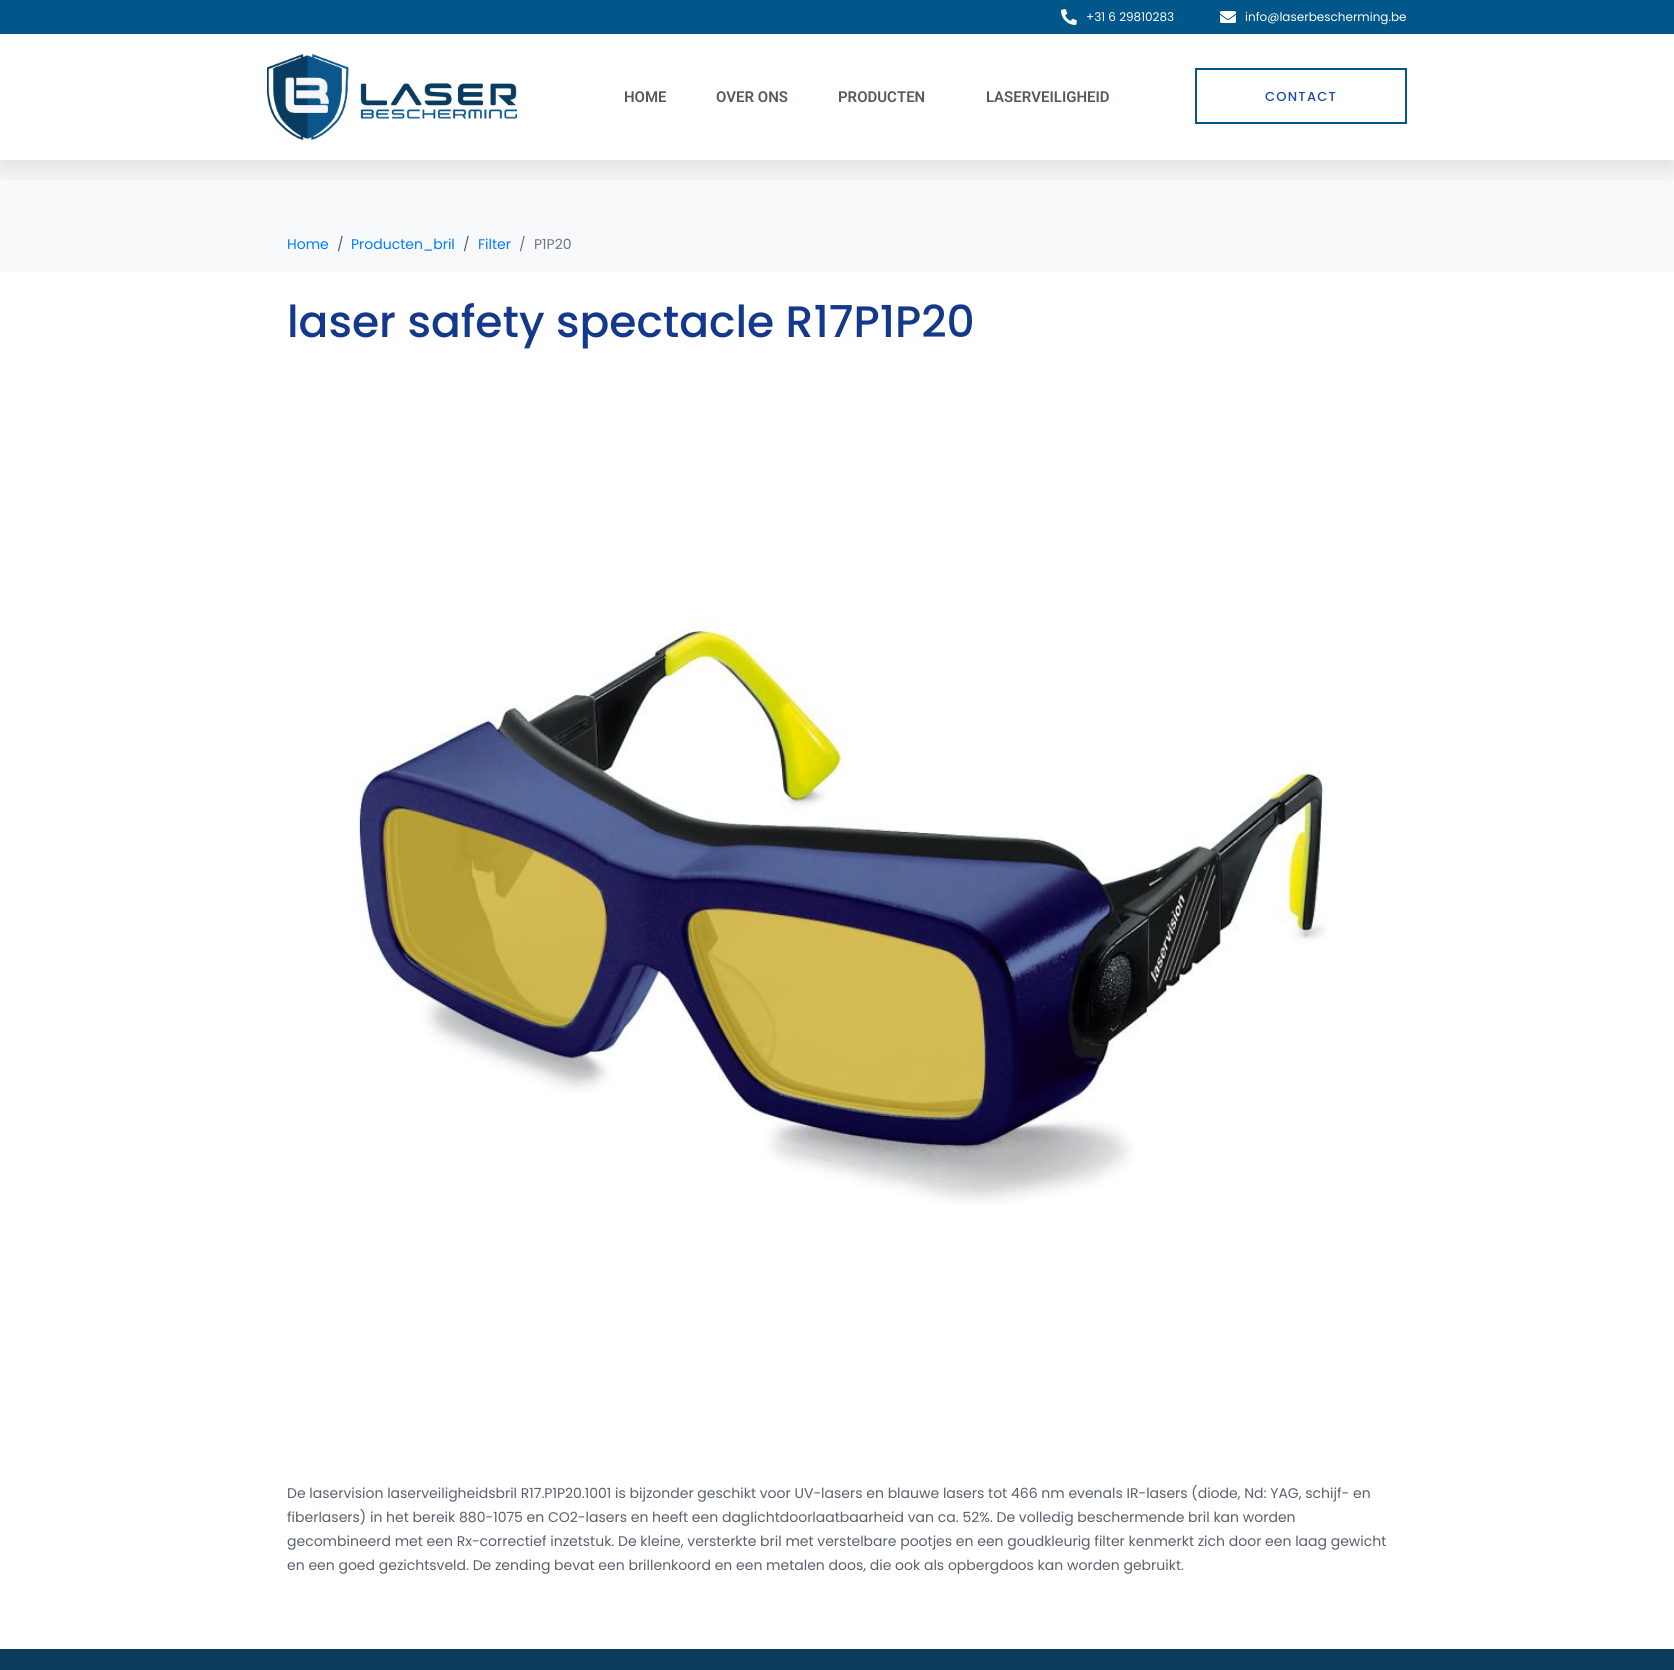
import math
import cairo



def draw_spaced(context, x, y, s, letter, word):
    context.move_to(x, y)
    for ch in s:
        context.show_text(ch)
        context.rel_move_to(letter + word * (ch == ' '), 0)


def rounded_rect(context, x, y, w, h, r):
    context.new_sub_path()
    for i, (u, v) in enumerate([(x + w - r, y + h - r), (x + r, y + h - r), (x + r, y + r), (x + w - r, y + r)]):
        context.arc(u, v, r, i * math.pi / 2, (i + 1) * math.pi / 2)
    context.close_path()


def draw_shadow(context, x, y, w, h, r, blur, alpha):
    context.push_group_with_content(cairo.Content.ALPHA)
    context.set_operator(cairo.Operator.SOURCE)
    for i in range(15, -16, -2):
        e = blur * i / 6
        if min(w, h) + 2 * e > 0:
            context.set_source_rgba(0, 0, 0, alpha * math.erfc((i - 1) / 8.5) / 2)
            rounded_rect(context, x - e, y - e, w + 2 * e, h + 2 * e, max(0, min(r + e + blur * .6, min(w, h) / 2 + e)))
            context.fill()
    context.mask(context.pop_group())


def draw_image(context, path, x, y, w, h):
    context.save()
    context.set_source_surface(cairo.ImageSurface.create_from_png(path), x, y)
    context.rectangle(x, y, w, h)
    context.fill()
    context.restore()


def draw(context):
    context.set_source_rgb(1, 1, 1)
    context.paint()
    context.set_source_rgb(1 / 255, 86 / 255, 138 / 255)
    context.rectangle(0, 0, 1674, 34)
    context.fill()
    draw_image(context, "images/1.png", 1061, 9, 16, 16)
    draw_image(context, "images/2.png", 1220, 11, 16, 12)
    context.set_source_rgb(248 / 255, 249 / 255, 250 / 255)
    context.rectangle(0, 160, 1674, 112)
    context.fill()
    context.save()
    context.rectangle(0, 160, 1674, 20)
    context.clip()
    context.set_source_rgb(0, 0, 0)
    draw_shadow(context, 0, 44, 1674, 126, 0, 12, 0.1)
    context.restore()
    draw_image(context, "images/3.png", 267, 54, 250, 86)
    context.rectangle(1196, 69, 210, 54)
    context.set_source_rgb(1 / 255, 86 / 255, 138 / 255)
    context.stroke()
    draw_image(context, "images/4.png", 358, 616, 971, 589)
    context.set_source_rgb(12 / 255, 61 / 255, 95 / 255)
    context.rectangle(0, 1649, 1674, 21)
    context.fill()
    context.select_font_face("Poppins")
    context.set_font_size(12)
    context.set_source_rgb(1, 1, 1)
    context.move_to(1086, 21)
    context.show_text("+31 6 29810283")
    context.move_to(1245, 21)
    context.show_text("info@laserbescherming.be")
    context.select_font_face("Roboto SemiBold")
    context.set_font_size(15)
    context.set_source_rgb(84 / 255, 89 / 255, 95 / 255)
    context.move_to(624, 102)
    context.show_text("HOME")
    context.move_to(716, 102)
    context.show_text("OVER ONS")
    context.move_to(838, 102)
    context.show_text("PRODUCTEN")
    context.move_to(986, 102)
    context.show_text("LASERVEILIGHEID")
    context.select_font_face("Poppins Medium")
    context.set_font_size(13)
    context.set_source_rgb(30 / 255, 73 / 255, 172 / 255)
    draw_spaced(context, 1265, 101, "CONTACT", 1.25, 0)
    context.select_font_face("Poppins")
    context.set_font_size(14)
    context.set_source_rgb(0, 123 / 255, 1)
    context.move_to(287, 249)
    context.show_text("Home")
    context.set_source_rgb(89 / 255, 95 / 255, 110 / 255)
    context.move_to(337, 249)
    context.show_text("/")
    context.set_source_rgb(0, 123 / 255, 1)
    context.move_to(351, 249)
    context.show_text("Producten_bril")
    context.set_source_rgb(89 / 255, 95 / 255, 110 / 255)
    context.move_to(463, 249)
    context.show_text("/")
    context.set_source_rgb(0, 123 / 255, 1)
    context.move_to(478, 249)
    context.show_text("Filter")
    context.set_source_rgb(108 / 255, 117 / 255, 125 / 255)
    context.move_to(519, 249)
    context.show_text("/")
    context.move_to(534, 249)
    context.show_text("P1P20")
    context.select_font_face("Poppins Medium")
    context.set_font_size(44)
    context.set_source_rgb(19 / 255, 56 / 255, 140 / 255)
    context.move_to(287, 337)
    context.show_text("laser safety spectacle R17P1P20")
    context.select_font_face("Poppins")
    context.set_font_size(14)
    context.set_source_rgb(89 / 255, 95 / 255, 110 / 255)
    context.move_to(287, 1498)
    context.show_text("De laservision laserveiligheidsbril R17.P1P20.1001 is bijzonder geschikt voor UV-lasers en blauwe lasers tot 466 nm evenals IR-lasers (diode, Nd: YAG, schijf- en")
    context.move_to(287, 1522)
    context.show_text("fiberlasers) in het bereik 880-1075 en CO2-lasers en heeft een daglichtdoorlaatbaarheid van ca. 52%. De volledig beschermende bril kan worden")
    context.move_to(287, 1546)
    context.show_text("gecombineerd met een Rx-correctief inzetstuk. De kleine, versterkte bril met verstelbare pootjes en een goudkleurig filter kenmerkt zich door een laag gewicht")
    context.move_to(287, 1570)
    context.show_text("en een goed gezichtsveld. De zending bevat een brillenkoord en een metalen doos, die ook als opbergdoos kan worden gebruikt.")


surface = cairo.ImageSurface(cairo.Format.RGB24, 1674, 1670)
context = cairo.Context(surface)
options = cairo.FontOptions()
options.set_hint_metrics(cairo.HintMetrics.OFF)
options.set_hint_style(cairo.HintStyle.NONE)
context.set_font_options(options)
context.set_miter_limit(4)
draw(context)
surface.write_to_png("out.png")
